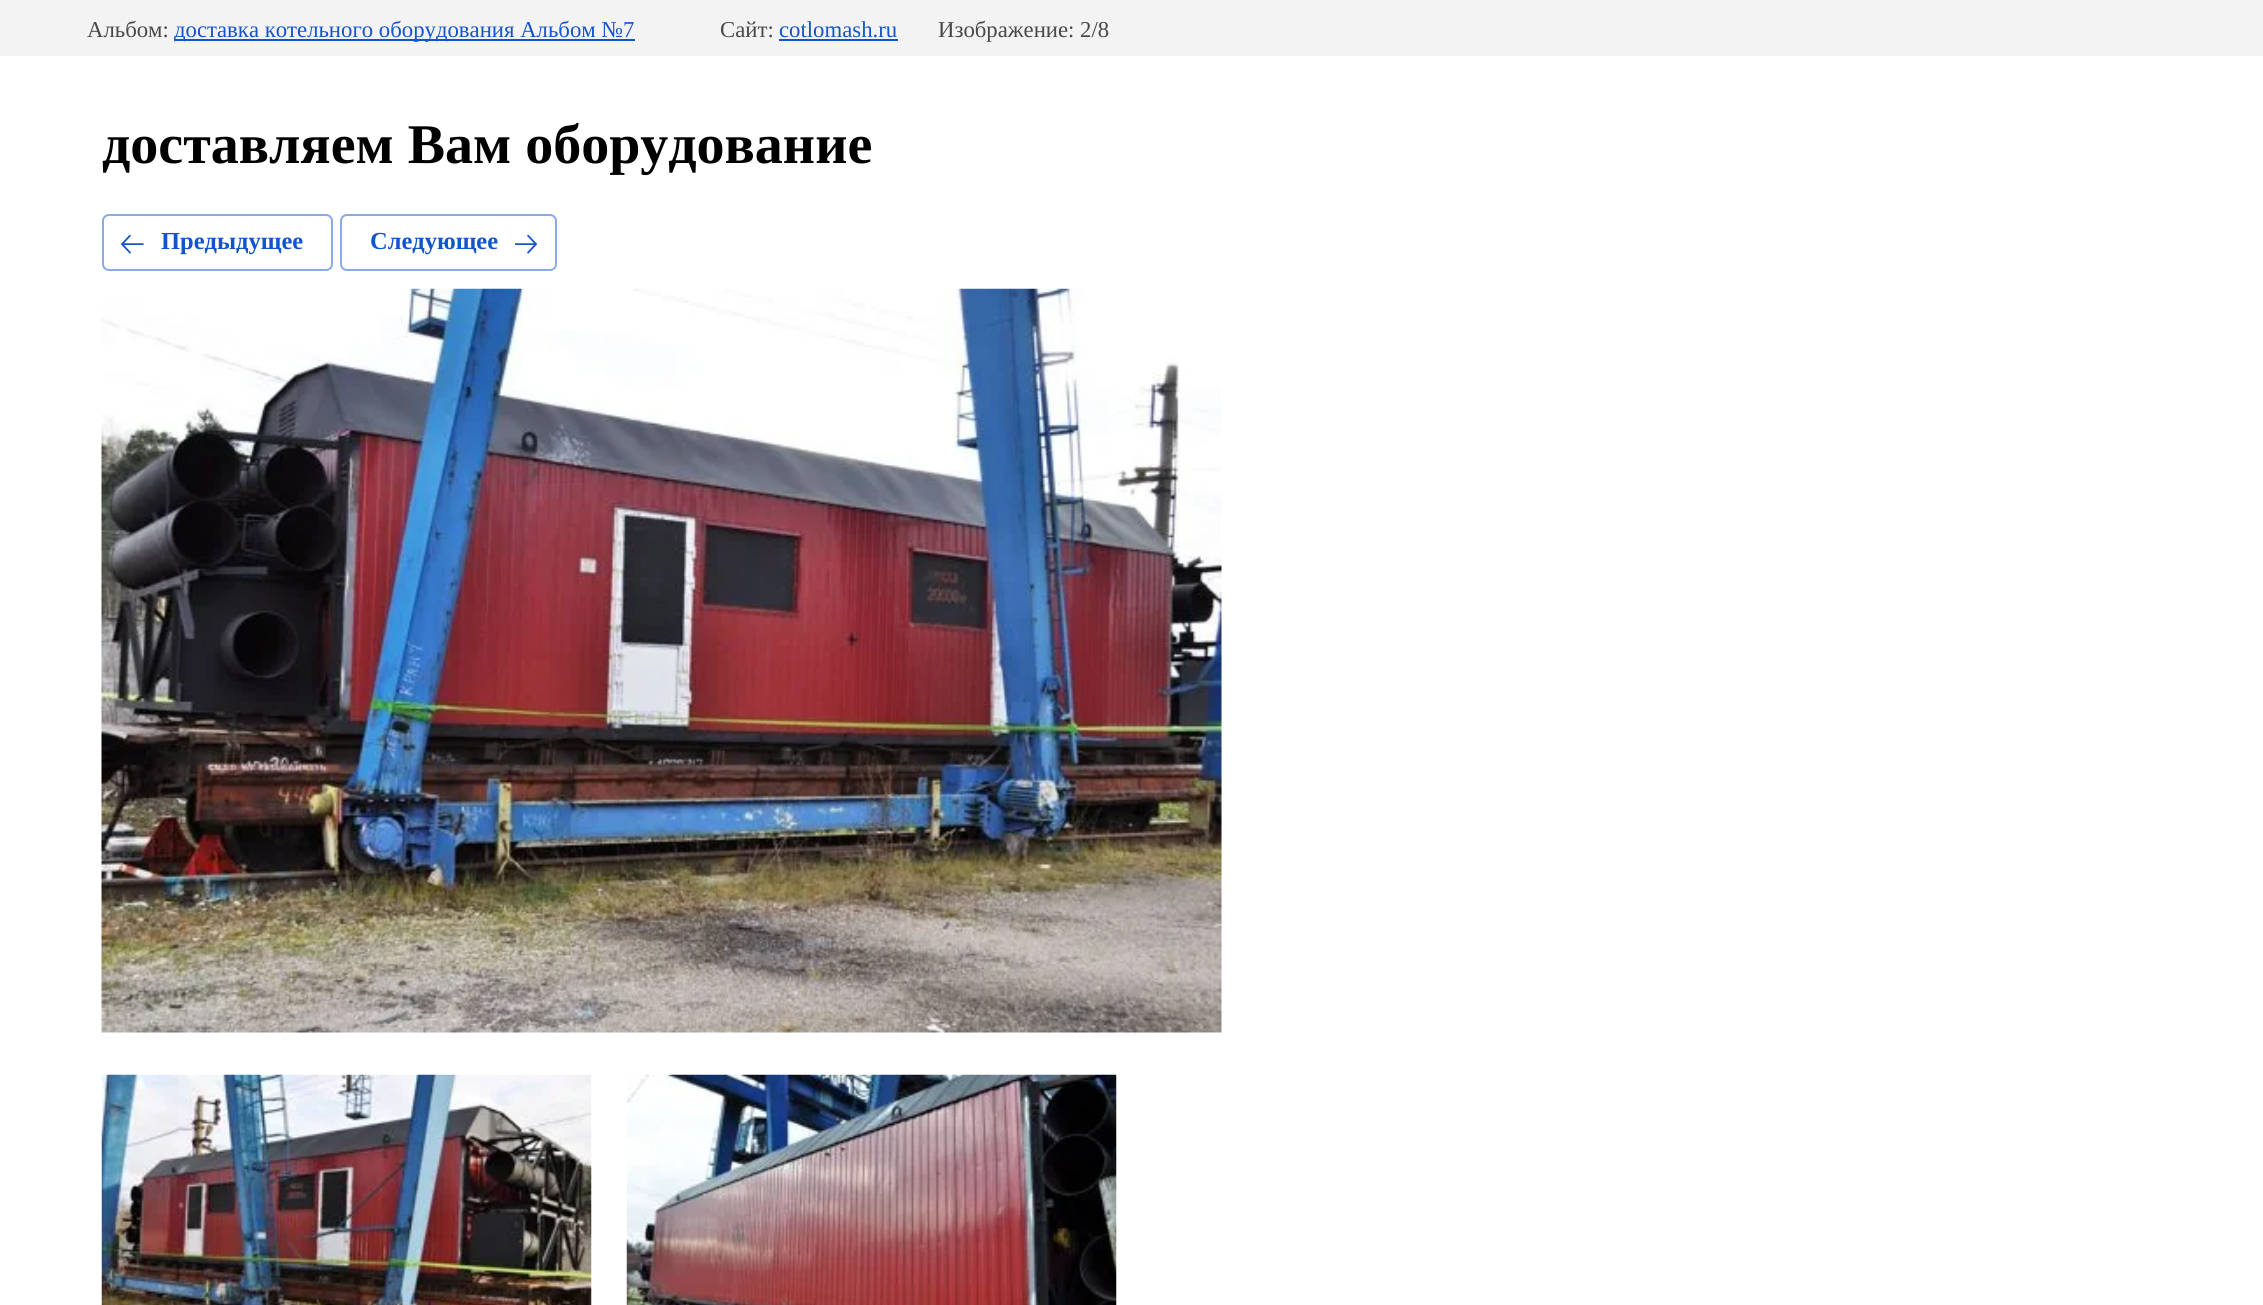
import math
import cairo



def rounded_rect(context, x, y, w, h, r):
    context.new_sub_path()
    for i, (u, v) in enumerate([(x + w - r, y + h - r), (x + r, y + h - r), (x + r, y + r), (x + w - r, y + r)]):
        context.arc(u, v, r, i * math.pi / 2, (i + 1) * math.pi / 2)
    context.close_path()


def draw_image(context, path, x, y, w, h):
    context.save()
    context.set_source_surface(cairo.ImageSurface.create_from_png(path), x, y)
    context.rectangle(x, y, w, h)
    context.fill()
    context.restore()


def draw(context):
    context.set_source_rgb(1, 1, 1)
    context.paint()
    context.set_source_rgb(243 / 255, 243 / 255, 243 / 255)
    context.rectangle(0, 0, 2263, 56)
    context.fill()
    context.set_source_rgb(17 / 255, 85 / 255, 204 / 255)
    context.rectangle(175, 39, 460, 2)
    context.fill()
    context.rectangle(779, 39, 119, 2)
    context.fill()
    rounded_rect(context, 103, 215, 229, 55, 6)
    context.set_source_rgb(136 / 255, 170 / 255, 230 / 255)
    context.stroke()
    draw_image(context, "images/1.png", 121, 235, 23, 19)
    rounded_rect(context, 341, 215, 215, 55, 6)
    context.stroke()
    draw_image(context, "images/2.png", 515, 235, 22, 19)
    draw_image(context, "images/3.png", 101, 288, 1121, 745)
    draw_image(context, "images/4.png", 101, 1074, 491, 231)
    draw_image(context, "images/5.png", 626, 1074, 491, 231)
    context.select_font_face("Liberation Serif")
    context.set_font_size(22.75)
    context.set_source_rgb(72 / 255, 72 / 255, 72 / 255)
    context.move_to(87, 37)
    context.show_text("Альбом:")
    context.set_source_rgb(17 / 255, 85 / 255, 204 / 255)
    context.move_to(174, 37)
    context.show_text("доставка котельного оборудования Альбом №7")
    context.set_source_rgb(72 / 255, 72 / 255, 72 / 255)
    context.move_to(720, 37)
    context.show_text("Сайт:")
    context.set_source_rgb(17 / 255, 85 / 255, 204 / 255)
    context.move_to(779, 37)
    context.show_text("cotlomash.ru")
    context.set_source_rgb(72 / 255, 72 / 255, 72 / 255)
    context.move_to(938, 37)
    context.show_text("Изображение: 2/8")
    context.select_font_face("Liberation Serif", cairo.FontSlant.NORMAL, cairo.FontWeight.BOLD)
    context.set_font_size(56)
    context.set_source_rgb(0, 0, 0)
    context.move_to(102, 163)
    context.show_text("доставляем Вам оборудование")
    context.set_font_size(24.5)
    context.set_source_rgb(17 / 255, 85 / 255, 204 / 255)
    context.move_to(161, 249)
    context.show_text("Предыдущее")
    context.move_to(370, 249)
    context.show_text("Следующее")


surface = cairo.ImageSurface(cairo.Format.RGB24, 2263, 1305)
context = cairo.Context(surface)
options = cairo.FontOptions()
options.set_hint_metrics(cairo.HintMetrics.OFF)
options.set_hint_style(cairo.HintStyle.NONE)
context.set_font_options(options)
context.set_miter_limit(4)
draw(context)
surface.write_to_png("out.png")
